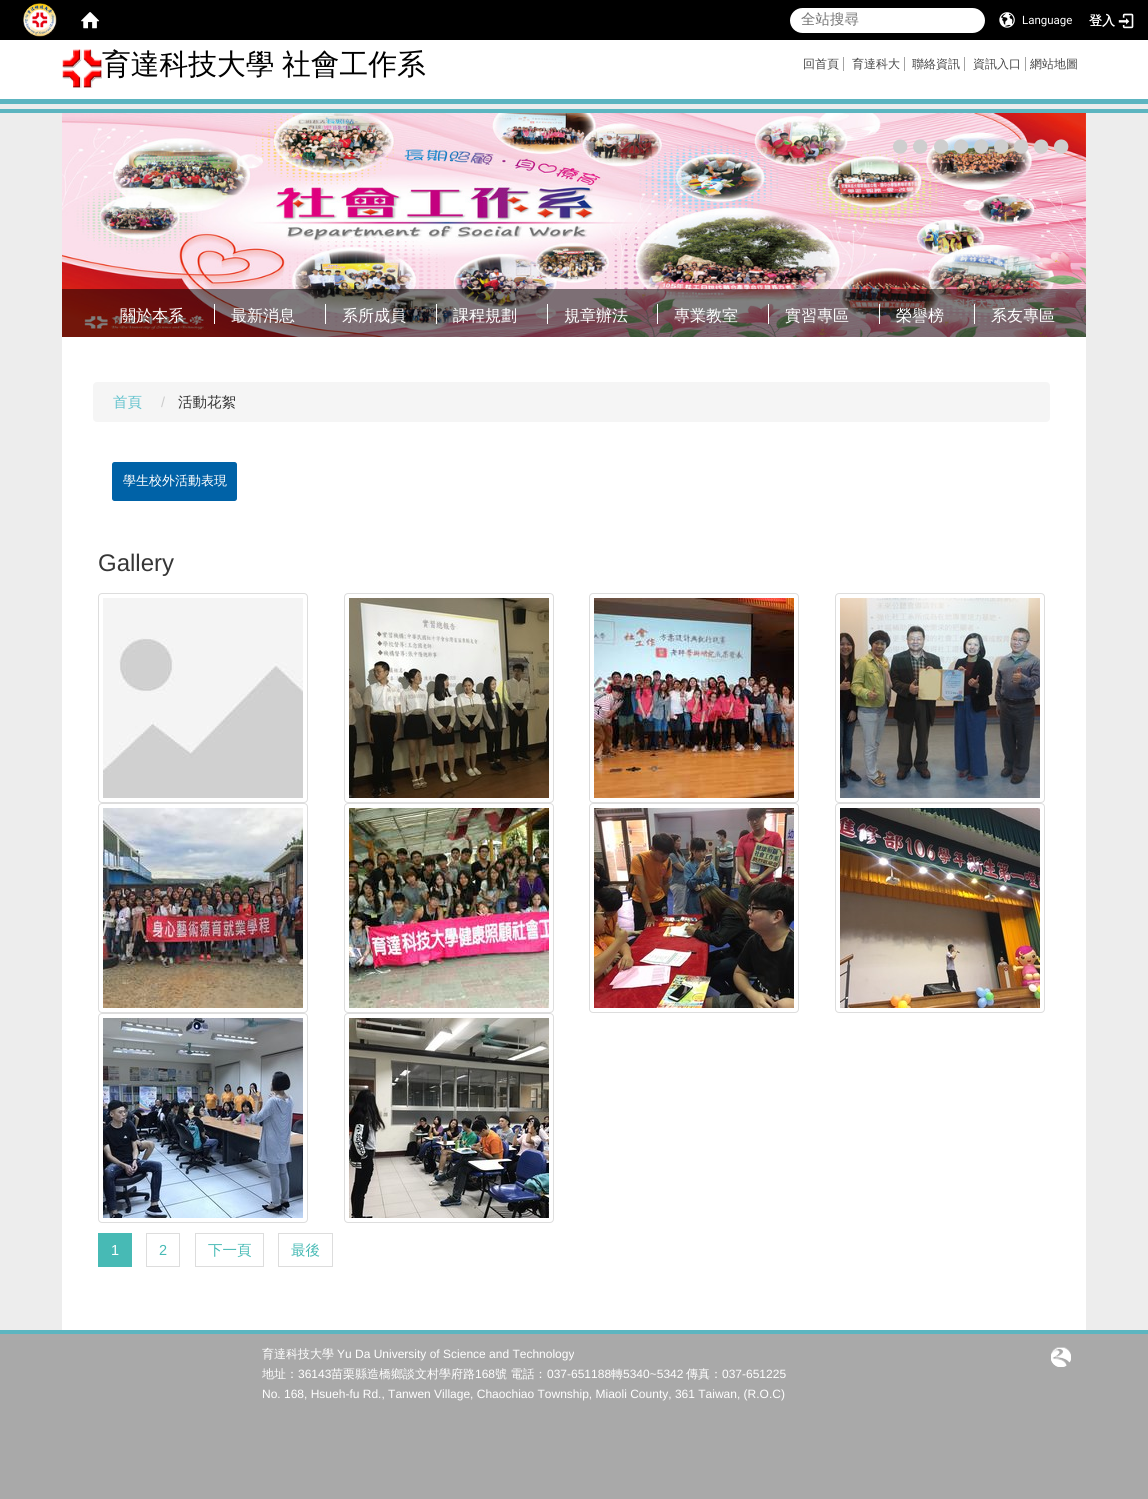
import math
import cairo



def draw_spaced(context, x, y, s, letter, word):
    context.move_to(x, y)
    for ch in s:
        context.show_text(ch)
        context.rel_move_to(letter + word * (ch == ' '), 0)


def rounded_rect(context, x, y, w, h, r):
    context.new_sub_path()
    for i, (u, v) in enumerate([(x + w - r, y + h - r), (x + r, y + h - r), (x + r, y + r), (x + w - r, y + r)]):
        context.arc(u, v, r, i * math.pi / 2, (i + 1) * math.pi / 2)
    context.close_path()


def draw_image(context, path, x, y, w, h):
    context.save()
    context.set_source_surface(cairo.ImageSurface.create_from_png(path), x, y)
    context.rectangle(x, y, w, h)
    context.fill()
    context.restore()


def draw(context):
    context.set_source_rgb(1, 1, 1)
    context.paint()
    context.set_source_rgb(0, 0, 0)
    context.rectangle(0, 0, 1148, 40)
    context.fill()
    draw_image(context, "images/1.png", 23, 3, 34, 34)
    draw_image(context, "images/2.png", 81, 12, 19, 17)
    context.set_source_rgb(1, 1, 1)
    rounded_rect(context, 790, 8, 195, 25, 12.5)
    context.fill()
    draw_image(context, "images/3.png", 999, 12, 16, 16)
    draw_image(context, "images/4.png", 1118, 13, 16, 16)
    context.set_source_rgb(237 / 255, 237 / 255, 237 / 255)
    context.rectangle(0, 104, 1148, 1226)
    context.fill()
    draw_image(context, "images/5.png", 0, 41, 1148, 63)
    draw_image(context, "images/6.png", 62, 49, 40, 39)
    context.set_source_rgb(163 / 255, 163 / 255, 163 / 255)
    context.rectangle(843, 57, 1, 14)
    context.fill()
    context.rectangle(904, 57, 1, 14)
    context.fill()
    context.rectangle(964, 57, 1, 14)
    context.fill()
    context.rectangle(1025, 57, 1, 14)
    context.fill()
    context.set_source_rgb(92 / 255, 181 / 255, 192 / 255)
    context.rectangle(0, 109, 1148, 4)
    context.fill()
    draw_image(context, "images/7.png", 62, 113, 1024, 224)
    draw_image(context, "images/8.png", 893, 139, 15, 15)
    draw_image(context, "images/9.png", 913, 139, 15, 15)
    draw_image(context, "images/10.png", 934, 139, 15, 15)
    draw_image(context, "images/11.png", 954, 139, 15, 15)
    draw_image(context, "images/12.png", 974, 139, 15, 15)
    draw_image(context, "images/13.png", 994, 139, 15, 15)
    draw_image(context, "images/14.png", 1014, 139, 15, 15)
    draw_image(context, "images/15.png", 1034, 139, 15, 15)
    draw_image(context, "images/16.png", 1054, 139, 15, 15)
    context.set_source_rgba(0, 0, 0, 0.5)
    context.rectangle(62, 289, 1024, 48)
    context.fill()
    context.set_source_rgb(1, 1, 1)
    context.rectangle(214, 304, 1, 20)
    context.fill()
    context.rectangle(325, 304, 1, 20)
    context.fill()
    context.rectangle(436, 304, 1, 20)
    context.fill()
    context.rectangle(547, 304, 1, 20)
    context.fill()
    context.rectangle(657, 304, 1, 20)
    context.fill()
    context.rectangle(768, 304, 1, 20)
    context.fill()
    context.rectangle(879, 304, 1, 20)
    context.fill()
    context.rectangle(974, 304, 1, 20)
    context.fill()
    context.rectangle(62, 337, 1024, 993)
    context.fill()
    context.set_source_rgb(245 / 255, 245 / 255, 245 / 255)
    rounded_rect(context, 93, 382, 957, 40, 4)
    context.fill()
    context.set_source_rgb(0, 98 / 255, 167 / 255)
    rounded_rect(context, 112, 462, 125, 39, 2.5)
    context.fill()
    rounded_rect(context, 98.5, 593.5, 209, 209, 3.5)
    context.set_source_rgb(221 / 255, 221 / 255, 221 / 255)
    context.set_line_width(1)
    context.stroke()
    draw_image(context, "images/17.png", 103, 598, 200, 200)
    rounded_rect(context, 344.5, 593.5, 209, 209, 3.5)
    context.stroke()
    draw_image(context, "images/18.png", 349, 598, 200, 200)
    rounded_rect(context, 589.5, 593.5, 209, 209, 3.5)
    context.stroke()
    draw_image(context, "images/19.png", 594, 598, 200, 200)
    rounded_rect(context, 835.5, 593.5, 209, 209, 3.5)
    context.stroke()
    draw_image(context, "images/20.png", 840, 598, 200, 200)
    rounded_rect(context, 98.5, 803.5, 209, 209, 3.5)
    context.stroke()
    draw_image(context, "images/21.png", 103, 808, 200, 200)
    rounded_rect(context, 344.5, 803.5, 209, 209, 3.5)
    context.stroke()
    draw_image(context, "images/22.png", 349, 808, 200, 200)
    rounded_rect(context, 589.5, 803.5, 209, 209, 3.5)
    context.stroke()
    draw_image(context, "images/23.png", 594, 808, 200, 200)
    rounded_rect(context, 835.5, 803.5, 209, 209, 3.5)
    context.stroke()
    draw_image(context, "images/24.png", 840, 808, 200, 200)
    rounded_rect(context, 98.5, 1013.5, 209, 209, 3.5)
    context.stroke()
    draw_image(context, "images/25.png", 103, 1018, 200, 200)
    rounded_rect(context, 344.5, 1013.5, 209, 209, 3.5)
    context.stroke()
    draw_image(context, "images/26.png", 349, 1018, 200, 200)
    context.set_source_rgb(71 / 255, 186 / 255, 181 / 255)
    context.rectangle(98, 1233, 34, 34)
    context.fill()
    context.rectangle(146.5, 1233.5, 33, 33)
    context.set_source_rgb(221 / 255, 221 / 255, 221 / 255)
    context.stroke()
    context.rectangle(195.5, 1233.5, 68, 33)
    context.stroke()
    context.rectangle(278.5, 1233.5, 54, 33)
    context.stroke()
    context.set_source_rgb(169 / 255, 169 / 255, 169 / 255)
    context.rectangle(0, 1334, 1148, 165)
    context.fill()
    context.set_source_rgb(92 / 255, 181 / 255, 192 / 255)
    context.rectangle(0, 1330, 1148, 4)
    context.fill()
    draw_image(context, "images/27.png", 1051, 1347, 20, 20)
    context.select_font_face("WenQuanYi Zen Hei Medium")
    context.set_font_size(14.5)
    context.set_source_rgb(117 / 255, 117 / 255, 117 / 255)
    context.move_to(801, 24)
    context.show_text("全站搜尋")
    context.select_font_face("Roboto")
    context.set_font_size(11.5)
    context.set_source_rgb(1, 1, 1)
    context.move_to(1022, 24)
    context.show_text("Language")
    context.select_font_face("WenQuanYi Zen Hei", cairo.FontSlant.NORMAL, cairo.FontWeight.BOLD)
    context.set_font_size(13)
    context.move_to(1089, 25)
    context.show_text("登入")
    context.select_font_face("WenQuanYi Zen Hei Medium")
    context.set_font_size(28.75)
    context.set_source_rgb(0, 0, 0)
    draw_spaced(context, 102, 74, "育達科技大學 社會工作系", 0, -1)
    context.set_font_size(12)
    context.set_source_rgb(70 / 255, 70 / 255, 70 / 255)
    context.move_to(803, 68)
    context.show_text("回首頁")
    context.move_to(852, 68)
    context.show_text("育達科大")
    context.move_to(912, 68)
    context.show_text("聯絡資訊")
    context.move_to(973, 68)
    context.show_text("資訊入口")
    context.move_to(1030, 68)
    context.show_text("網站地圖")
    context.set_font_size(16)
    context.set_source_rgb(1, 1, 1)
    context.move_to(120, 321)
    context.show_text("關於本系")
    context.move_to(231, 321)
    context.show_text("最新消息")
    context.move_to(342, 321)
    context.show_text("系所成員")
    context.move_to(453, 321)
    context.show_text("課程規劃")
    context.move_to(564, 321)
    context.show_text("規章辦法")
    context.move_to(674, 321)
    context.show_text("專業教室")
    context.move_to(785, 321)
    context.show_text("實習專區")
    context.move_to(896, 321)
    context.show_text("榮譽榜")
    context.move_to(991, 321)
    context.show_text("系友專區")
    context.set_font_size(14.5)
    context.set_source_rgb(97 / 255, 194 / 255, 205 / 255)
    context.move_to(113, 407)
    context.show_text("首頁")
    context.select_font_face("Liberation Sans")
    context.set_source_rgb(204 / 255, 204 / 255, 204 / 255)
    context.move_to(161, 407)
    context.show_text("/")
    context.select_font_face("WenQuanYi Zen Hei Medium")
    context.set_source_rgb(54 / 255, 54 / 255, 54 / 255)
    context.move_to(178, 407)
    context.show_text("活動花絮")
    context.set_font_size(13)
    context.set_source_rgb(1, 1, 1)
    context.move_to(123, 485)
    context.show_text("學生校外活動表現")
    context.select_font_face("Liberation Sans")
    context.set_font_size(24)
    context.set_source_rgb(54 / 255, 54 / 255, 54 / 255)
    context.move_to(98, 571)
    context.show_text("Gallery")
    context.set_font_size(14.5)
    context.set_source_rgb(1, 1, 1)
    context.move_to(111, 1255)
    context.show_text("1")
    context.set_source_rgb(71 / 255, 186 / 255, 181 / 255)
    context.move_to(159, 1255)
    context.show_text("2")
    context.select_font_face("WenQuanYi Zen Hei Medium")
    context.move_to(208, 1255)
    context.show_text("下一頁")
    context.move_to(291, 1255)
    context.show_text("最後")
    context.set_font_size(12)
    context.set_source_rgb(1, 1, 1)
    context.move_to(262, 1358)
    context.show_text("育達科技大學")
    context.select_font_face("Liberation Sans")
    context.move_to(337, 1358)
    context.show_text("Yu Da University of Science and Technology")
    context.select_font_face("WenQuanYi Zen Hei Medium")
    context.move_to(262, 1378)
    context.show_text("地址：")
    context.select_font_face("Liberation Sans")
    context.move_to(298, 1378)
    context.show_text("36143")
    context.select_font_face("WenQuanYi Zen Hei Medium")
    context.move_to(331, 1378)
    context.show_text("苗栗縣造橋鄉談文村學府路")
    context.select_font_face("Liberation Sans")
    context.move_to(475, 1378)
    context.show_text("168")
    context.select_font_face("WenQuanYi Zen Hei Medium")
    context.move_to(495, 1378)
    context.show_text("號 電話：")
    context.select_font_face("Liberation Sans")
    context.move_to(547, 1378)
    context.show_text("037-651188")
    context.select_font_face("WenQuanYi Zen Hei Medium")
    context.move_to(611, 1378)
    context.show_text("轉")
    context.select_font_face("Liberation Sans")
    context.move_to(623, 1378)
    context.show_text("5340~5342")
    context.select_font_face("WenQuanYi Zen Hei Medium")
    context.move_to(686, 1378)
    context.show_text("傳真：")
    context.select_font_face("Liberation Sans")
    context.move_to(722, 1378)
    context.show_text("037-651225")
    context.move_to(262, 1398)
    context.show_text("No. 168, Hsueh-fu Rd., Tanwen Village, Chaochiao Township, Miaoli County, 361 Taiwan, (R.O.C)")


surface = cairo.ImageSurface(cairo.Format.RGB24, 1148, 1499)
context = cairo.Context(surface)
options = cairo.FontOptions()
options.set_hint_metrics(cairo.HintMetrics.OFF)
options.set_hint_style(cairo.HintStyle.NONE)
context.set_font_options(options)
context.set_miter_limit(4)
draw(context)
surface.write_to_png("out.png")
